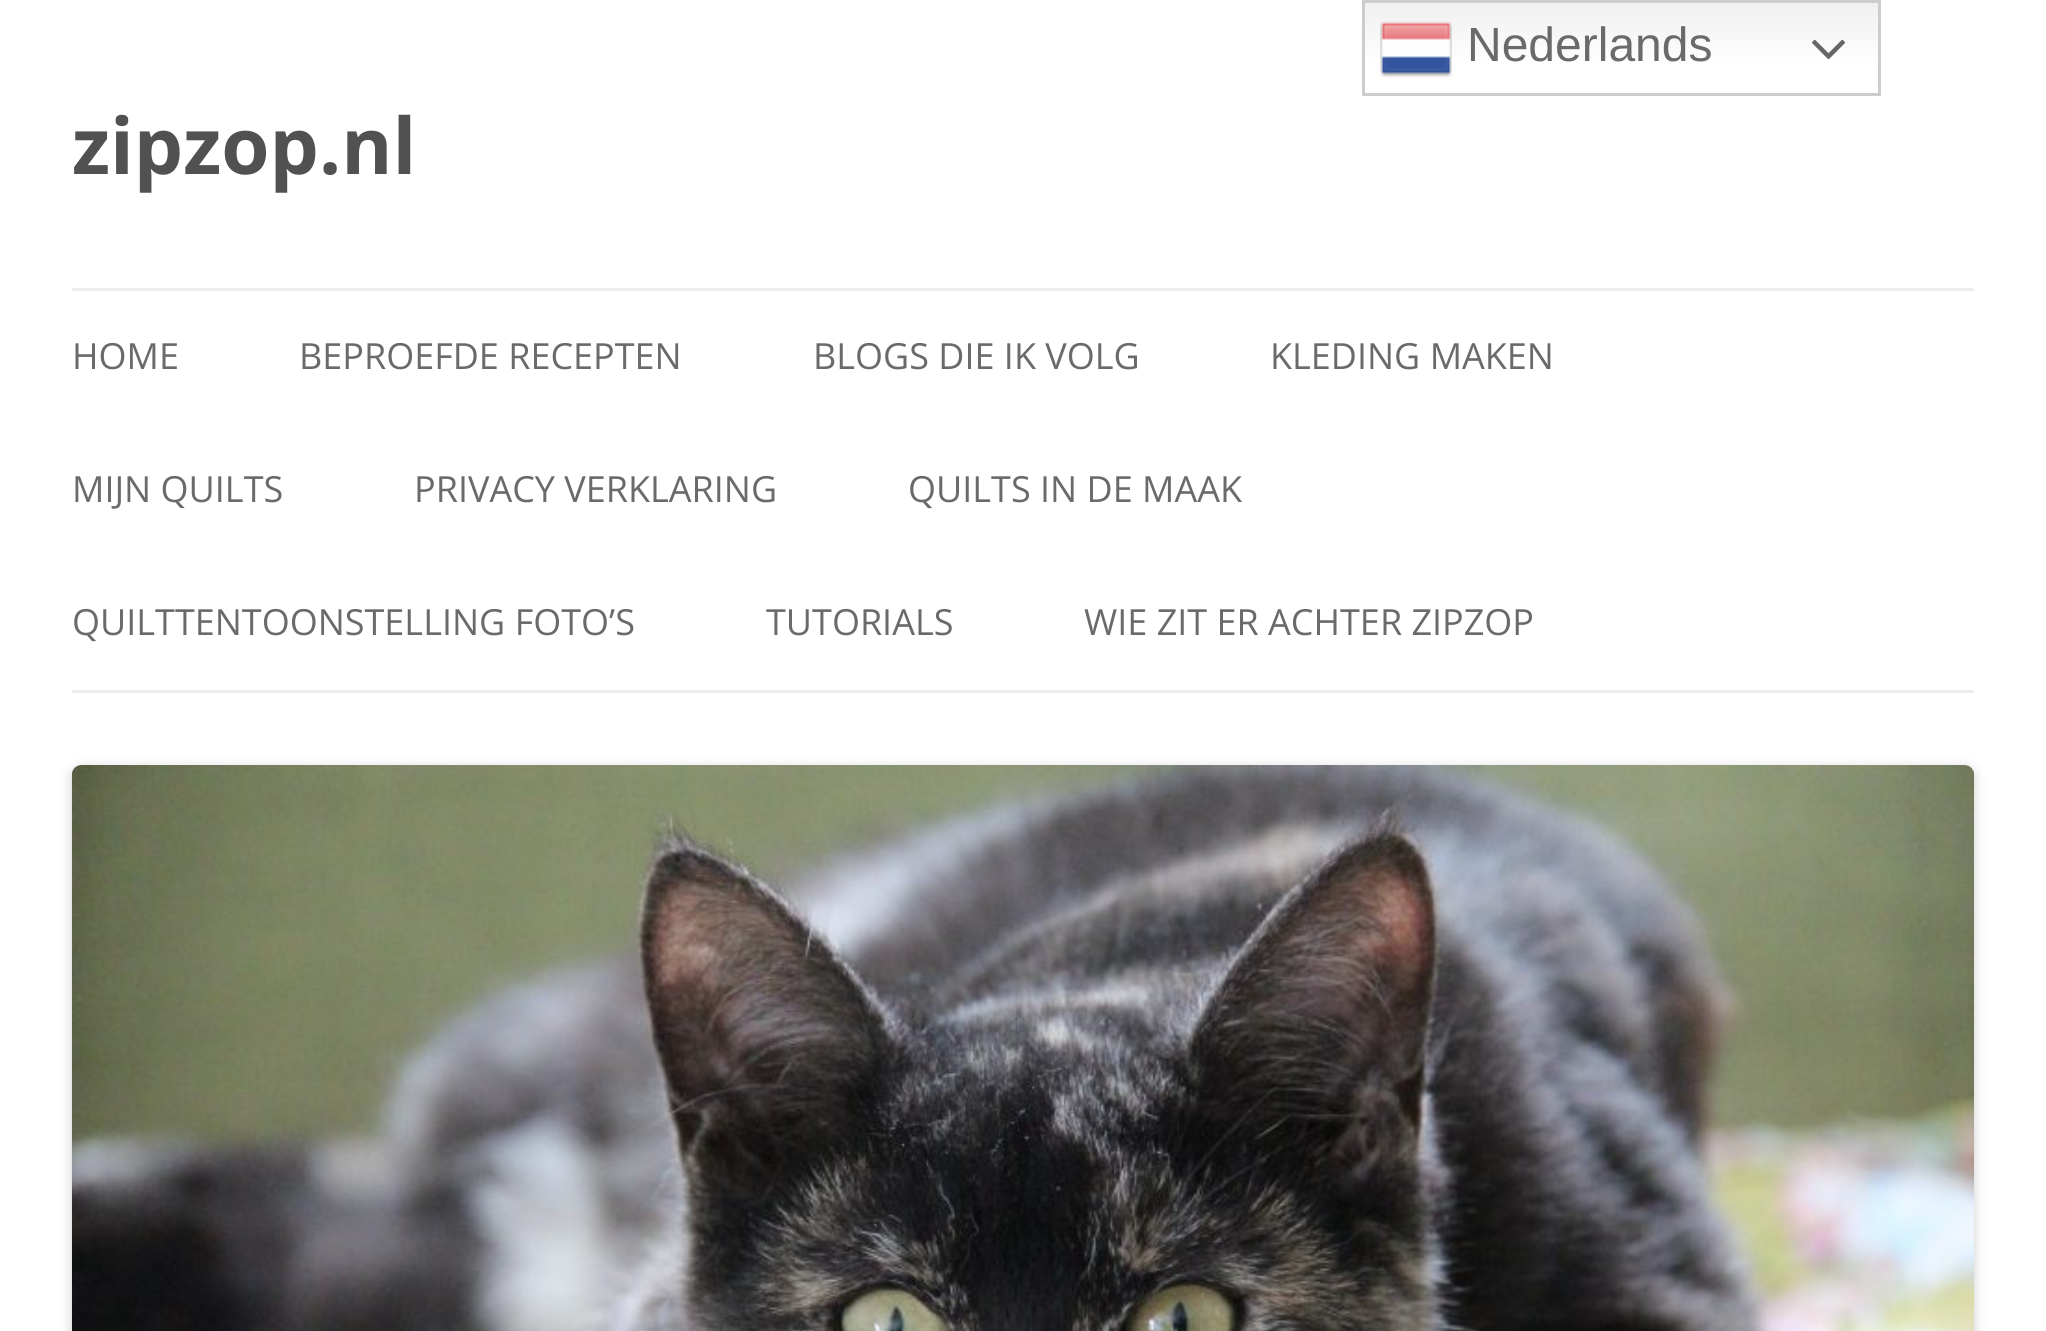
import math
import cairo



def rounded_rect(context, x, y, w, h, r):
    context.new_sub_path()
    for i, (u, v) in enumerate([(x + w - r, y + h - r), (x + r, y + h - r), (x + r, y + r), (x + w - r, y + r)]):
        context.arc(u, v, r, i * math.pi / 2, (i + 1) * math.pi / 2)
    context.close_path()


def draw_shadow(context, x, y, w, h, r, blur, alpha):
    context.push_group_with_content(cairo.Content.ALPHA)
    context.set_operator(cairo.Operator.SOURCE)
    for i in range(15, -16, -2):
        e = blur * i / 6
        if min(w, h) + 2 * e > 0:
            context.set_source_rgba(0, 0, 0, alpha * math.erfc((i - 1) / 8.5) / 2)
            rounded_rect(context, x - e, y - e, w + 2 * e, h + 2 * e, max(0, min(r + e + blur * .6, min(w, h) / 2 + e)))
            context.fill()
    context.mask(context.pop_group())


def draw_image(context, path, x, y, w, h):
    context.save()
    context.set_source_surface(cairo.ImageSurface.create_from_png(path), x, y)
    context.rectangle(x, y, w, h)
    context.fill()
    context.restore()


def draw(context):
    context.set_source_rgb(1, 1, 1)
    context.paint()
    gradient = cairo.LinearGradient(1622, 0, 1622, 96)
    gradient.add_color_stop_rgba(0, 239 / 255, 239 / 255, 239 / 255, 1)
    gradient.add_color_stop_rgba(0.7, 1, 1, 1, 1)
    context.set_source(gradient)
    context.rectangle(1365, 3, 513, 54)
    context.fill()
    context.rectangle(1363.5, 1.5, 516, 93)
    context.set_source_rgb(204 / 255, 204 / 255, 204 / 255)
    context.set_line_width(3)
    context.stroke()
    draw_image(context, "images/1.png", 1380, 21, 72, 57)
    draw_image(context, "images/2.png", 1812, 39, 33, 21)
    context.set_source_rgb(237 / 255, 237 / 255, 237 / 255)
    context.rectangle(72, 288, 1902, 3)
    context.fill()
    context.rectangle(72, 690, 1902, 3)
    context.fill()
    context.set_source_rgb(0, 0, 0)
    draw_shadow(context, 72, 768, 1902, 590, 9, 6, 0.2)
    draw_image(context, "images/3.png", 72, 765, 1902, 566)
    context.select_font_face("Liberation Sans")
    context.set_font_size(48)
    context.set_source_rgb(106 / 255, 106 / 255, 106 / 255)
    context.move_to(1467, 61)
    context.show_text("Nederlands")
    context.select_font_face("Open Sans", cairo.FontSlant.NORMAL, cairo.FontWeight.BOLD)
    context.set_font_size(78)
    context.set_source_rgb(81 / 255, 81 / 255, 81 / 255)
    context.move_to(72, 174)
    context.show_text("zipzop.nl")
    context.select_font_face("Open Sans")
    context.set_font_size(36)
    context.set_source_rgb(106 / 255, 106 / 255, 106 / 255)
    context.move_to(72, 369)
    context.show_text("HOME")
    context.move_to(299, 369)
    context.show_text("BEPROEFDE RECEPTEN")
    context.move_to(813, 369)
    context.show_text("BLOGS DIE IK VOLG")
    context.move_to(1270, 369)
    context.show_text("KLEDING MAKEN")
    context.move_to(72, 502)
    context.show_text("MIJN QUILTS")
    context.move_to(414, 502)
    context.show_text("PRIVACY VERKLARING")
    context.move_to(908, 502)
    context.show_text("QUILTS IN DE MAAK")
    context.move_to(72, 635)
    context.show_text("QUILTTENTOONSTELLING FOTO’S")
    context.move_to(766, 635)
    context.show_text("TUTORIALS")
    context.move_to(1084, 635)
    context.show_text("WIE ZIT ER ACHTER ZIPZOP")


surface = cairo.ImageSurface(cairo.Format.RGB24, 2046, 1331)
context = cairo.Context(surface)
options = cairo.FontOptions()
options.set_hint_metrics(cairo.HintMetrics.OFF)
options.set_hint_style(cairo.HintStyle.NONE)
context.set_font_options(options)
context.set_miter_limit(4)
draw(context)
surface.write_to_png("out.png")
